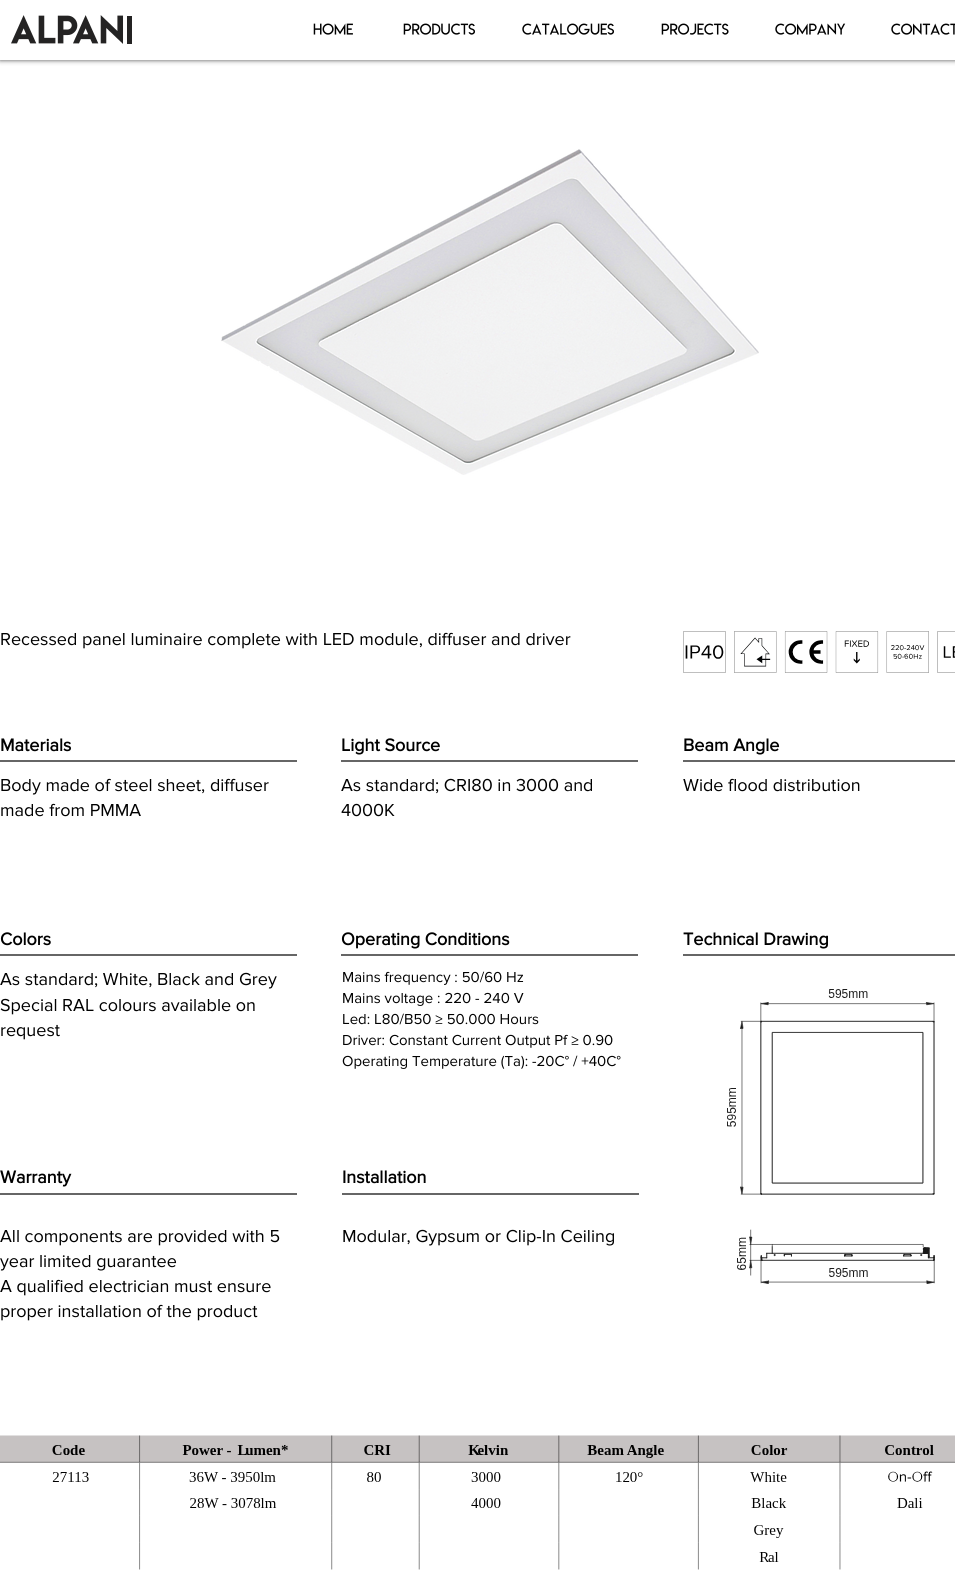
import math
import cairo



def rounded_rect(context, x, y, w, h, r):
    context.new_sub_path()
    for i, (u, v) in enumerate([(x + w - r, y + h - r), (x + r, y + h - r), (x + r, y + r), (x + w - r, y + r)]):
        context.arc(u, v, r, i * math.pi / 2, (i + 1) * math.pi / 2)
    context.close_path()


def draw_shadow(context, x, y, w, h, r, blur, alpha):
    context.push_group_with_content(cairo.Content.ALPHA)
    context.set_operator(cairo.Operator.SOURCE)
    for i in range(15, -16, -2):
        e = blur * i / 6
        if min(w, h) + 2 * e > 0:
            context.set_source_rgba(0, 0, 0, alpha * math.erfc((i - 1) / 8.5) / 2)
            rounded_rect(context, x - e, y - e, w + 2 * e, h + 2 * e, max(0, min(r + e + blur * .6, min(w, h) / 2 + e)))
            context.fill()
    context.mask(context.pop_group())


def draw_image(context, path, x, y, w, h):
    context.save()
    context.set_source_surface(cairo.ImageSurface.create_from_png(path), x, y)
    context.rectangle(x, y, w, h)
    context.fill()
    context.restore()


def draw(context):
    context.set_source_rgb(1, 1, 1)
    context.paint()
    context.set_source_rgb(0, 0, 0)
    draw_shadow(context, 0, 0, 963, 60, 0, 2.5, 0.7)
    context.set_source_rgb(1, 1, 1)
    context.rectangle(0, 0, 955, 60)
    context.fill()
    draw_image(context, "images/1.png", 11, 15, 121, 29)
    draw_image(context, "images/2.png", 221, 149, 538, 326)
    draw_image(context, "images/3.png", 683, 631, 272, 42)
    context.set_source_rgb(102 / 255, 102 / 255, 102 / 255)
    context.rectangle(0, 760, 297, 2)
    context.fill()
    context.rectangle(341, 760, 297, 2)
    context.fill()
    context.rectangle(683, 760, 272, 2)
    context.fill()
    context.rectangle(0, 954, 297, 2)
    context.fill()
    context.rectangle(341, 954, 297, 2)
    context.fill()
    context.rectangle(683, 954, 272, 2)
    context.fill()
    draw_image(context, "images/4.png", 727, 989, 208, 295)
    context.rectangle(0, 1193, 297, 2)
    context.fill()
    context.rectangle(342, 1193, 297, 2)
    context.fill()
    draw_image(context, "images/5.png", 0, 1435, 955, 135)
    context.select_font_face("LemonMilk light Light")
    context.set_font_size(15)
    context.set_source_rgb(0, 0, 0)
    context.move_to(313, 35)
    context.show_text("HOME")
    context.move_to(403, 35)
    context.show_text("PRODUCTS")
    context.move_to(522, 35)
    context.show_text("CATALOGUES")
    context.move_to(661, 35)
    context.show_text("PROJECTS")
    context.move_to(775, 35)
    context.show_text("COMPANY")
    context.move_to(891, 35)
    context.show_text("CONTACT")
    context.select_font_face("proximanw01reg")
    context.set_font_size(18)
    context.move_to(0, 645)
    context.show_text("Recessed panel luminaire complete with LED module, diffuser and driver")
    context.select_font_face("proximanw01reg", cairo.FontSlant.NORMAL, cairo.FontWeight.BOLD)
    context.move_to(0, 751)
    context.show_text("Materials")
    context.move_to(341, 751)
    context.show_text("Light Source")
    context.move_to(683, 751)
    context.show_text("Beam Angle")
    context.select_font_face("proximanw01reg")
    context.move_to(0, 791)
    context.show_text("Body made of steel sheet, diffuser")
    context.move_to(0, 816)
    context.show_text("made from PMMA")
    context.move_to(341, 791)
    context.show_text("As standard; CRI80 in 3000 and")
    context.move_to(341, 816)
    context.show_text("4000K")
    context.move_to(683, 791)
    context.show_text("Wide flood distribution")
    context.select_font_face("proximanw01reg", cairo.FontSlant.NORMAL, cairo.FontWeight.BOLD)
    context.move_to(0, 945)
    context.show_text("Colors")
    context.move_to(341, 945)
    context.show_text("Operating Conditions")
    context.move_to(683, 945)
    context.show_text("Technical Drawing")
    context.select_font_face("proximanw01reg")
    context.move_to(0, 985)
    context.show_text("As standard; White, Black and Grey")
    context.move_to(0, 1011)
    context.show_text("Special RAL colours available on")
    context.move_to(0, 1036)
    context.show_text("request")
    context.set_font_size(15)
    context.move_to(342, 982)
    context.show_text("Mains frequency : 50/60 Hz")
    context.move_to(342, 1003)
    context.show_text("Mains voltage : 220 - 240 V")
    context.move_to(342, 1024)
    context.show_text("Led: L80/B50 ≥ 50.000 Hours")
    context.move_to(342, 1045)
    context.show_text("Driver: Constant Current Output Pf ≥ 0.90")
    context.move_to(342, 1066)
    context.show_text("Operating Temperature (Ta): -20C° / +40C°")
    context.select_font_face("proximanw01reg", cairo.FontSlant.NORMAL, cairo.FontWeight.BOLD)
    context.set_font_size(18)
    context.move_to(0, 1183)
    context.show_text("Warranty")
    context.move_to(342, 1183)
    context.show_text("Installation")
    context.select_font_face("proximanw01reg")
    context.move_to(0, 1242)
    context.show_text("All components are provided with 5")
    context.move_to(0, 1267)
    context.show_text("year limited guarantee")
    context.move_to(0, 1292)
    context.show_text("A qualified electrician must ensure")
    context.move_to(0, 1317)
    context.show_text("proper installation of the product")
    context.move_to(342, 1242)
    context.show_text("Modular, Gypsum or Clip-In Ceiling")


surface = cairo.ImageSurface(cairo.Format.RGB24, 955, 1577)
context = cairo.Context(surface)
options = cairo.FontOptions()
options.set_hint_metrics(cairo.HintMetrics.OFF)
options.set_hint_style(cairo.HintStyle.NONE)
context.set_font_options(options)
context.set_miter_limit(4)
draw(context)
surface.write_to_png("out.png")
